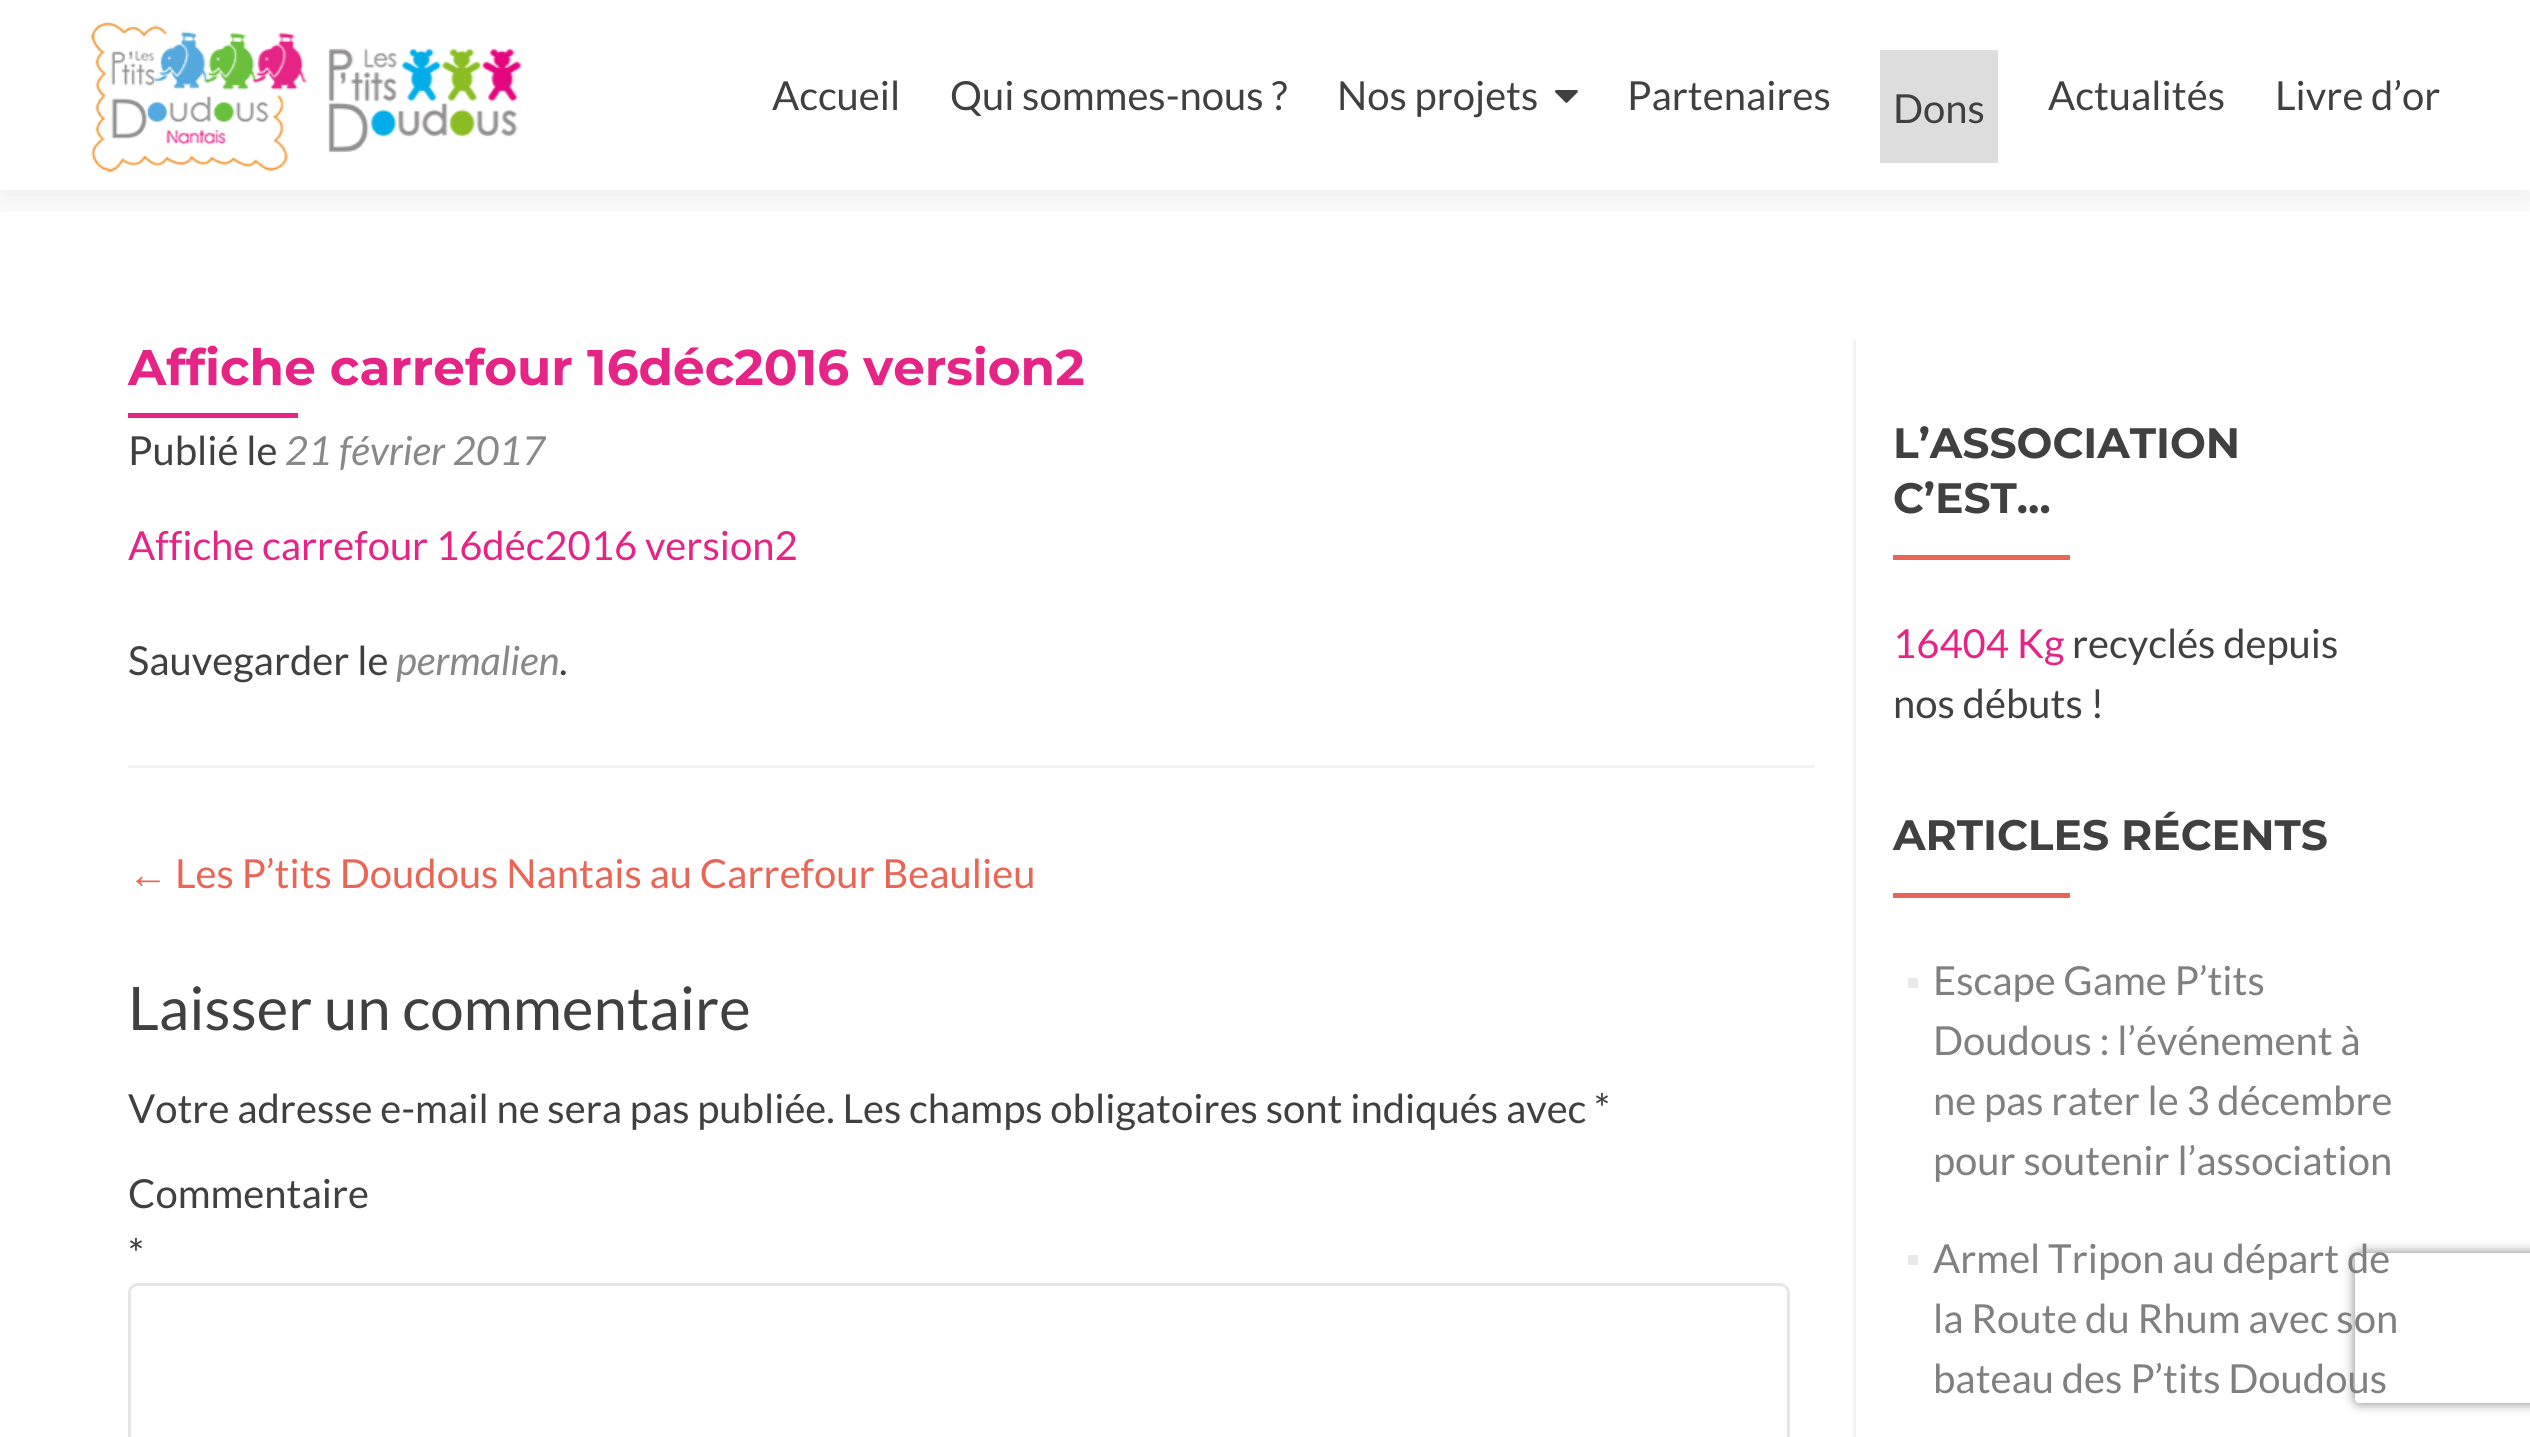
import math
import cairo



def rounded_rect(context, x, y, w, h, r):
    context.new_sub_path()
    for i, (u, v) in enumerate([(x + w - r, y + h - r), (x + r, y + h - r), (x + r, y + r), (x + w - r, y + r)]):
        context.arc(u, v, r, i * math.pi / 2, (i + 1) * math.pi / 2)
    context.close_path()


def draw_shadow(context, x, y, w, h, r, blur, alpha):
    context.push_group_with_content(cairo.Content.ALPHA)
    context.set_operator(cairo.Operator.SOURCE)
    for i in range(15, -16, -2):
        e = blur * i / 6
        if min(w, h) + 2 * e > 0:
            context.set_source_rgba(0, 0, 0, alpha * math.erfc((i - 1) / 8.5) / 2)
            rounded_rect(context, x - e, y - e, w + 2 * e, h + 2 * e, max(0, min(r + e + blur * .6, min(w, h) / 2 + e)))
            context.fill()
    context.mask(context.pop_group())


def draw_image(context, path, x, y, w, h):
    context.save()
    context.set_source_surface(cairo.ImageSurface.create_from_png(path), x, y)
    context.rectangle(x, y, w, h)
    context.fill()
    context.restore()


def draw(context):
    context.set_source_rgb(1, 1, 1)
    context.paint()
    context.save()
    context.rectangle(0, 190, 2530, 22)
    context.clip()
    context.set_source_rgb(50 / 255, 50 / 255, 50 / 255)
    draw_shadow(context, 0, 13, 2530, 190, 0, 14, 0.08)
    context.restore()
    draw_image(context, "images/1.png", 91, 22, 431, 151)
    draw_image(context, "images/2.png", 1555, 90, 23, 13)
    context.set_source_rgb(222 / 255, 221 / 255, 221 / 255)
    context.rectangle(1880, 50, 118, 113)
    context.fill()
    context.set_source_rgb(242 / 255, 242 / 255, 242 / 255)
    context.rectangle(128, 765, 1687, 3)
    context.fill()
    context.set_source_rgb(229 / 255, 36 / 255, 133 / 255)
    context.rectangle(128, 413, 170, 5)
    context.fill()
    rounded_rect(context, 129.5, 1284.5, 1659, 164, 8.5)
    context.set_source_rgb(230 / 255, 230 / 255, 230 / 255)
    context.set_line_width(3)
    context.stroke()
    context.set_source_rgb(242 / 255, 242 / 255, 242 / 255)
    context.rectangle(1853, 340, 3, 1097)
    context.fill()
    context.set_source_rgb(233 / 255, 102 / 255, 86 / 255)
    context.rectangle(1893, 555, 177, 5)
    context.fill()
    context.rectangle(1893, 893, 177, 5)
    context.fill()
    context.set_source_rgb(233 / 255, 233 / 255, 233 / 255)
    context.rectangle(1908, 978, 10, 10)
    context.fill()
    context.rectangle(1908, 1255, 10, 10)
    context.fill()
    context.save()
    context.set_fill_rule(cairo.FillRule.EVEN_ODD)
    context.new_path()
    context.move_to(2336, 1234)
    context.line_to(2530, 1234)
    context.line_to(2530, 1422)
    context.line_to(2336, 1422)
    context.close_path()
    context.move_to(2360, 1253)
    context.line_to(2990, 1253)
    context.curve_to(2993, 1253, 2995, 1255, 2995, 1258)
    context.line_to(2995, 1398)
    context.curve_to(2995, 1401, 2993, 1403, 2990, 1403)
    context.line_to(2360, 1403)
    context.curve_to(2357, 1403, 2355, 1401, 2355, 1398)
    context.line_to(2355, 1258)
    context.curve_to(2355, 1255, 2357, 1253, 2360, 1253)
    context.close_path()
    context.clip()
    context.set_source_rgb(128 / 255, 128 / 255, 128 / 255)
    draw_shadow(context, 2355, 1253, 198, 150, 5, 6, 1)
    context.restore()
    context.select_font_face("Lato")
    context.set_font_size(40)
    context.set_source_rgb(64 / 255, 64 / 255, 64 / 255)
    context.move_to(772, 110)
    context.show_text("Accueil")
    context.move_to(950, 110)
    context.show_text("Qui sommes-nous ?")
    context.move_to(1337, 110)
    context.show_text("Nos projets")
    context.move_to(1627, 110)
    context.show_text("Partenaires")
    context.move_to(1893, 123)
    context.show_text("Dons")
    context.move_to(2048, 110)
    context.show_text("Actualités")
    context.move_to(2275, 110)
    context.show_text("Livre d’or")
    context.select_font_face("Montserrat", cairo.FontSlant.NORMAL, cairo.FontWeight.BOLD)
    context.set_font_size(50)
    context.set_source_rgb(229 / 255, 36 / 255, 133 / 255)
    context.move_to(128, 385)
    context.show_text("Affiche carrefour 16déc2016 version2")
    context.select_font_face("Lato")
    context.set_font_size(40)
    context.set_source_rgb(64 / 255, 64 / 255, 64 / 255)
    context.move_to(128, 465)
    context.show_text("Publié le")
    context.select_font_face("Lato", cairo.FontSlant.ITALIC)
    context.set_source_rgb(136 / 255, 136 / 255, 136 / 255)
    context.move_to(285, 465)
    context.show_text("21 février 2017")
    context.select_font_face("Lato")
    context.set_source_rgb(229 / 255, 36 / 255, 133 / 255)
    context.move_to(128, 560)
    context.show_text("Affiche carrefour 16déc2016 version2")
    context.set_source_rgb(64 / 255, 64 / 255, 64 / 255)
    context.move_to(128, 675)
    context.show_text("Sauvegarder le")
    context.select_font_face("Lato", cairo.FontSlant.ITALIC)
    context.set_source_rgb(136 / 255, 136 / 255, 136 / 255)
    context.move_to(396, 675)
    context.show_text("permalien")
    context.select_font_face("Lato")
    context.set_source_rgb(64 / 255, 64 / 255, 64 / 255)
    context.move_to(559, 675)
    context.show_text(".")
    context.select_font_face("Liberation Sans")
    context.set_source_rgb(233 / 255, 102 / 255, 86 / 255)
    context.move_to(128, 888)
    context.show_text("←")
    context.select_font_face("Lato")
    context.move_to(175, 888)
    context.show_text("Les P’tits Doudous Nantais au Carrefour Beaulieu")
    context.set_font_size(60)
    context.set_source_rgb(64 / 255, 64 / 255, 64 / 255)
    context.move_to(128, 1030)
    context.show_text("Laisser un commentaire")
    context.set_font_size(40)
    context.move_to(128, 1123)
    context.show_text("Votre adresse e-mail ne sera pas publiée. Les champs obligatoires sont indiqués avec *")
    context.move_to(128, 1208)
    context.show_text("Commentaire")
    context.move_to(128, 1268)
    context.show_text("*")
    context.select_font_face("Montserrat", cairo.FontSlant.NORMAL, cairo.FontWeight.BOLD)
    context.set_font_size(42.5)
    context.move_to(1893, 458)
    context.show_text("L’ASSOCIATION")
    context.move_to(1893, 513)
    context.show_text("C’EST…")
    context.select_font_face("Lato")
    context.set_font_size(40)
    context.set_source_rgb(229 / 255, 36 / 255, 133 / 255)
    context.move_to(1893, 658)
    context.show_text("16404 Kg")
    context.set_source_rgb(64 / 255, 64 / 255, 64 / 255)
    context.move_to(2072, 658)
    context.show_text("recyclés depuis")
    context.move_to(1893, 718)
    context.show_text("nos débuts !")
    context.select_font_face("Montserrat", cairo.FontSlant.NORMAL, cairo.FontWeight.BOLD)
    context.set_font_size(42.5)
    context.move_to(1893, 850)
    context.show_text("ARTICLES RÉCENTS")
    context.select_font_face("Lato")
    context.set_font_size(40)
    context.set_source_rgb(128 / 255, 128 / 255, 128 / 255)
    context.move_to(1933, 995)
    context.show_text("Escape Game P’tits")
    context.move_to(1933, 1055)
    context.show_text("Doudous : l’événement à")
    context.move_to(1933, 1115)
    context.show_text("ne pas rater le 3 décembre")
    context.move_to(1933, 1175)
    context.show_text("pour soutenir l’association")
    context.move_to(1933, 1273)
    context.show_text("Armel Tripon au départ de")
    context.move_to(1933, 1333)
    context.show_text("la Route du Rhum avec son")
    context.move_to(1933, 1393)
    context.show_text("bateau des P’tits Doudous")


surface = cairo.ImageSurface(cairo.Format.RGB24, 2530, 1437)
context = cairo.Context(surface)
options = cairo.FontOptions()
options.set_hint_metrics(cairo.HintMetrics.OFF)
options.set_hint_style(cairo.HintStyle.NONE)
context.set_font_options(options)
context.set_miter_limit(4)
draw(context)
surface.write_to_png("out.png")
